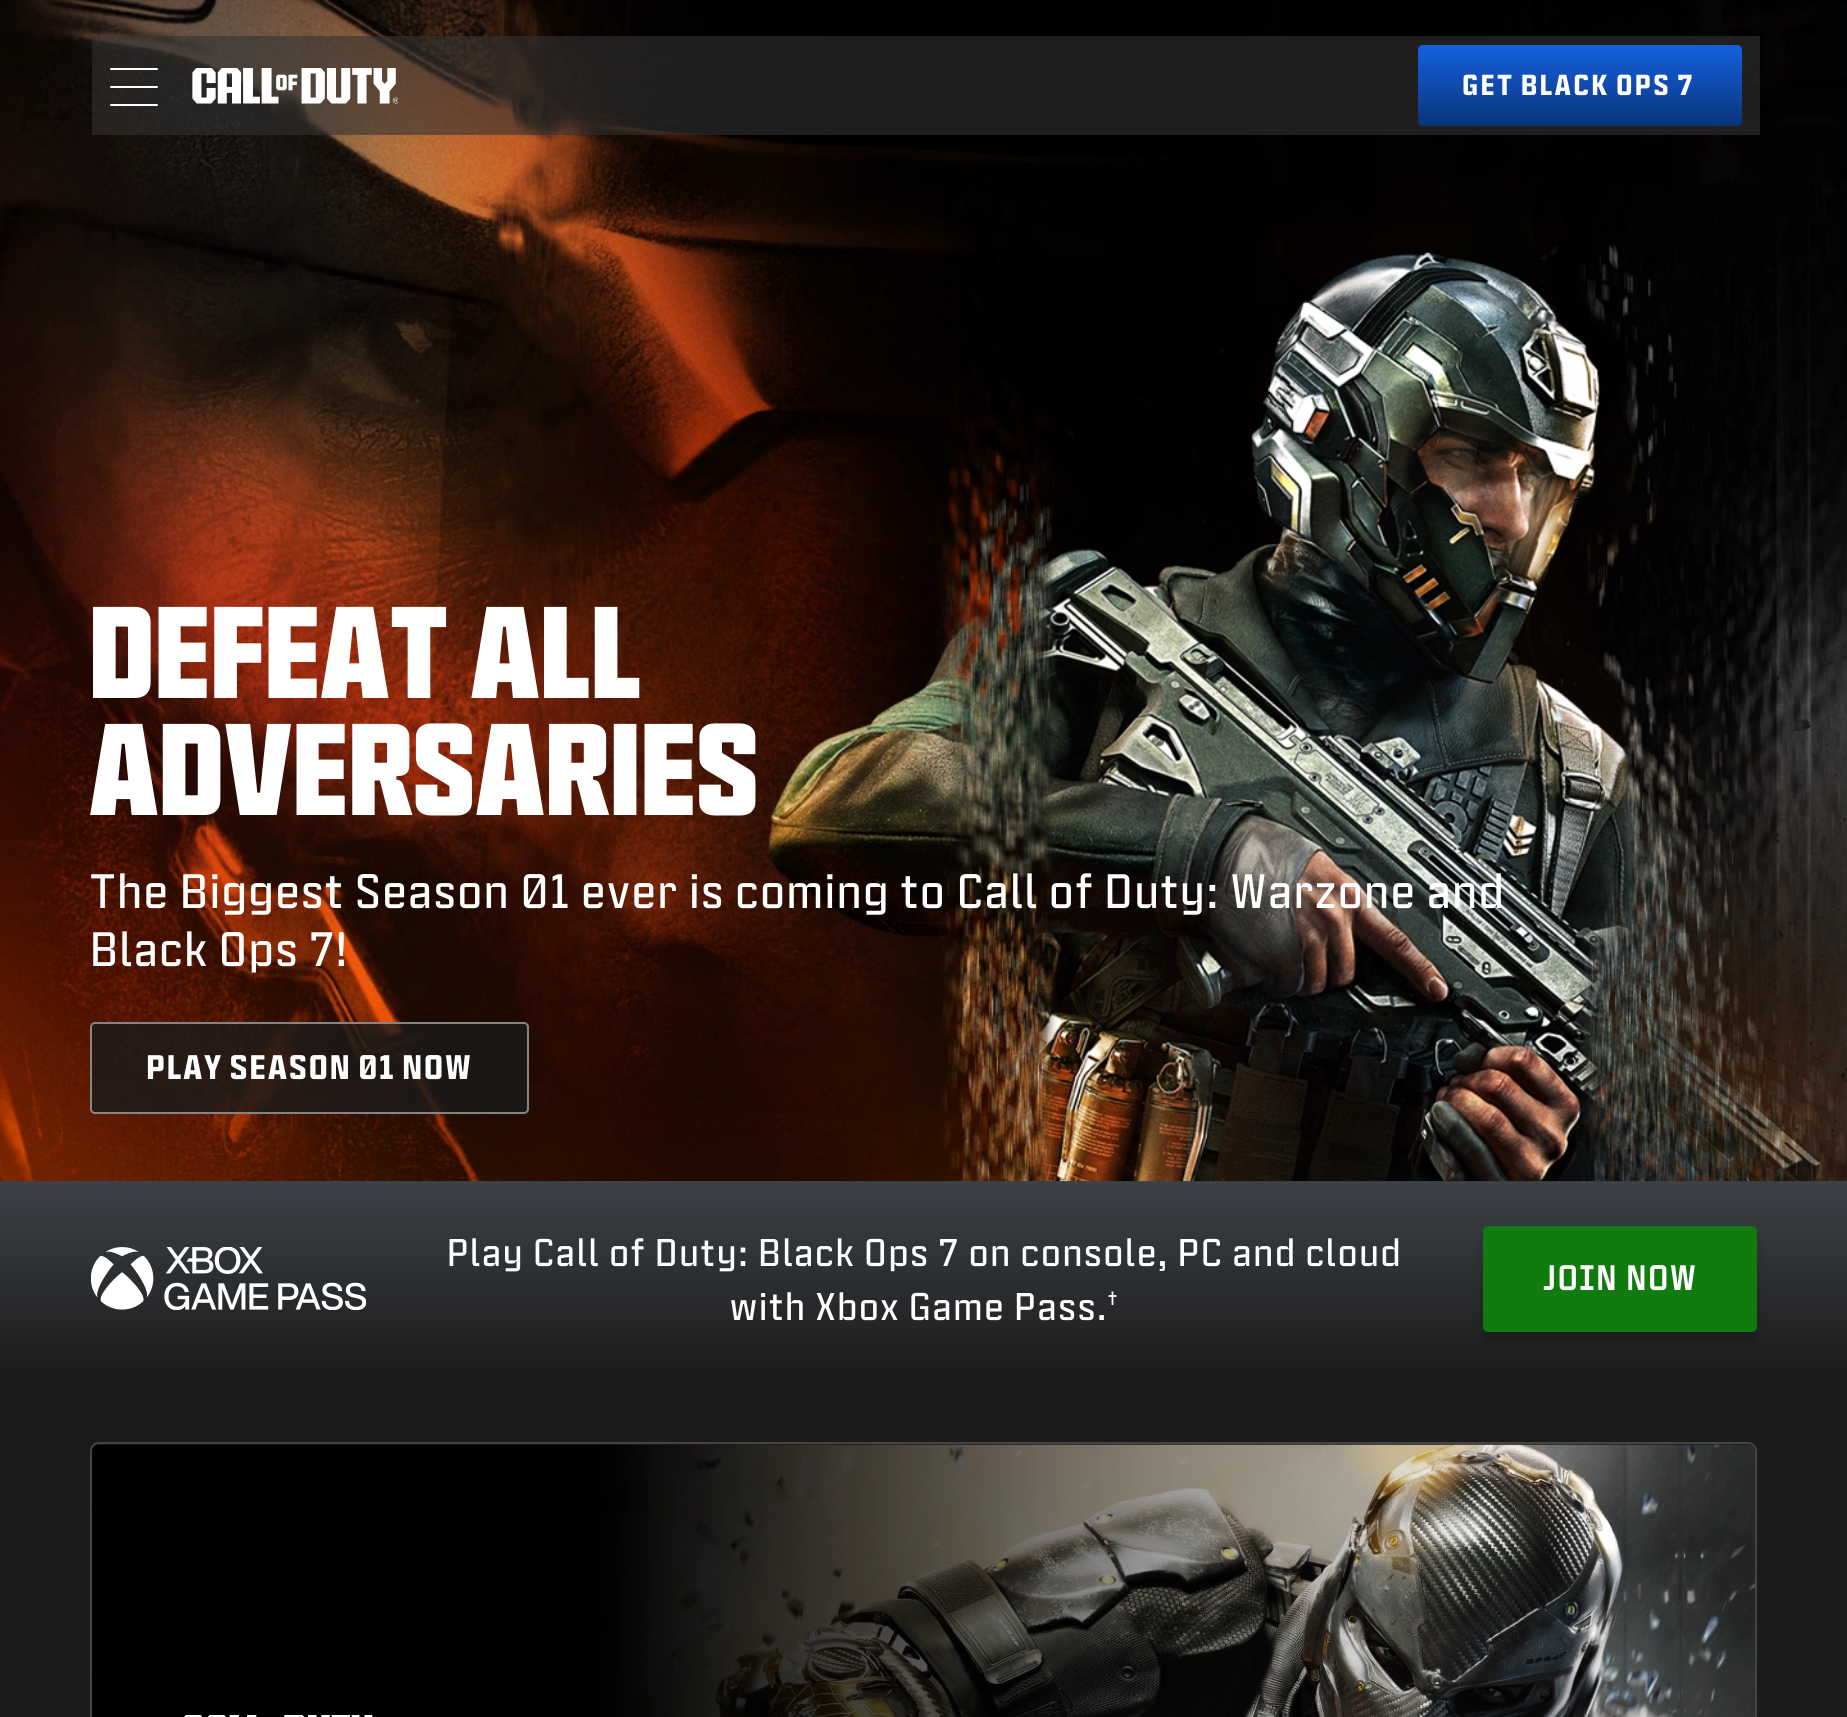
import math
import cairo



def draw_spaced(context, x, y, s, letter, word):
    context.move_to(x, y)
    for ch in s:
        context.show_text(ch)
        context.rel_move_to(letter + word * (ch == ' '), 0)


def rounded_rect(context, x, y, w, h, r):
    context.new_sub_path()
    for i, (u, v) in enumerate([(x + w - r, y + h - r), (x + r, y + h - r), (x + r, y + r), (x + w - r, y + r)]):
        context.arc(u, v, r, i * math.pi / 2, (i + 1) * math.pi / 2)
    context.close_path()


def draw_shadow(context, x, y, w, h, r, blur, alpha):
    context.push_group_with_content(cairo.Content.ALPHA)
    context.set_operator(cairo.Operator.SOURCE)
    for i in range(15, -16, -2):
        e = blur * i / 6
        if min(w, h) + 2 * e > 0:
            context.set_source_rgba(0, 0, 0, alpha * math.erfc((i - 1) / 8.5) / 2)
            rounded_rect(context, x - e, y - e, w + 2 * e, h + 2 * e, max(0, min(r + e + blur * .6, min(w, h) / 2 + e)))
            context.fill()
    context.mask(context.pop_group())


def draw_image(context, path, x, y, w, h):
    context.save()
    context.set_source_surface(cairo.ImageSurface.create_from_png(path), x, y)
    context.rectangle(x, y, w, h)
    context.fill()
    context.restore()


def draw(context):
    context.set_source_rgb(27 / 255, 27 / 255, 27 / 255)
    context.paint()
    draw_image(context, "images/2.png", 0, 0, 1847, 1181)
    context.set_source_rgba(51 / 255, 51 / 255, 51 / 255, 0.6)
    context.rectangle(92, 36, 1668, 99)
    context.fill()
    context.set_source_rgb(1, 1, 1)
    rounded_rect(context, 110, 68, 48, 2, 1)
    context.fill()
    rounded_rect(context, 110, 86, 48, 2, 1)
    context.fill()
    rounded_rect(context, 110, 104, 48, 2, 1)
    context.fill()
    draw_image(context, "images/1.png", 192, 68, 206, 36)
    gradient = cairo.LinearGradient(1578, 45, 1578, 126)
    gradient.add_color_stop_rgba(0, 21 / 255, 96 / 255, 224 / 255, 1)
    gradient.add_color_stop_rgba(1, 11 / 255, 52 / 255, 122 / 255, 1)
    context.set_source(gradient)
    rounded_rect(context, 1418, 45, 324, 81, 5)
    context.fill()
    gradient = cairo.LinearGradient(924, 1379, 924, 1181)
    gradient.add_color_stop_rgba(0, 27 / 255, 27 / 255, 27 / 255, 1)
    gradient.add_color_stop_rgba(1, 60 / 255, 65 / 255, 71 / 255, 1)
    context.set_source(gradient)
    context.rectangle(0, 1181, 1847, 187)
    context.fill()
    draw_image(context, "images/3.png", 769, 252, 1051, 930)
    context.set_source_rgba(27 / 255, 27 / 255, 27 / 255, 0.8)
    rounded_rect(context, 91, 1023, 437, 90, 4)
    context.fill_preserve()
    context.set_source_rgb(133 / 255, 133 / 255, 133 / 255)
    context.stroke()
    draw_image(context, "images/4.png", 91, 1247, 275, 63)
    context.set_source_rgb(0, 0, 0)
    draw_shadow(context, 1483, 1235, 274, 106, 5, 4.5, 0.2)
    context.set_source_rgb(16 / 255, 124 / 255, 16 / 255)
    rounded_rect(context, 1483, 1226, 274, 106, 5)
    context.fill()
    rounded_rect(context, 91, 1443, 1665, 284, 8)
    context.set_source_rgb(68 / 255, 68 / 255, 68 / 255)
    context.stroke()
    context.set_source_rgb(0, 0, 0)
    rounded_rect(context, 92, 1445, 1663, 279, 7)
    context.fill()
    draw_image(context, "images/5.png", 92, 1444, 1663, 273)
    draw_image(context, "images/6.png", 184, 1715, 189, 2)
    context.select_font_face("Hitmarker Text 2", cairo.FontSlant.NORMAL, cairo.FontWeight.BOLD)
    context.set_font_size(27)
    context.set_source_rgb(1, 1, 1)
    draw_spaced(context, 1462, 95, "GET BLACK OPS 7", 2.25, 0)
    context.select_font_face("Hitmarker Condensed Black")
    context.set_font_size(121.5)
    draw_spaced(context, 90, 698, "DEFEAT ALL", 2.25, 0)
    draw_spaced(context, 90, 815, "ADVERSARIES", 2.25, 0)
    context.select_font_face("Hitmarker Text")
    context.set_font_size(45)
    draw_spaced(context, 90, 908, "The Biggest Season 01 ever is coming to Call of Duty: Warzone and", 2.25, 0)
    draw_spaced(context, 90, 966, "Black Ops 7!", 2.25, 0)
    context.select_font_face("Hitmarker Text 2", cairo.FontSlant.NORMAL, cairo.FontWeight.BOLD)
    context.set_font_size(31.75)
    draw_spaced(context, 146, 1079, "PLAY SEASON 01 NOW", 1.6, 0)
    context.select_font_face("Hitmarker Text")
    context.set_font_size(36)
    draw_spaced(context, 447, 1266, "Play Call of Duty: Black Ops 7 on console, PC and cloud", 2.25, 0)
    draw_spaced(context, 730, 1320, "with Xbox Game Pass.", 2.25, 0)
    context.set_font_size(18)
    draw_spaced(context, 1108, 1305, "†", 2.25, 0)
    context.select_font_face("Hitmarker Text", cairo.FontSlant.NORMAL, cairo.FontWeight.BOLD)
    context.set_font_size(31.75)
    draw_spaced(context, 1543, 1290, "JOIN NOW", 2.25, 0)


surface = cairo.ImageSurface(cairo.Format.RGB24, 1847, 1717)
context = cairo.Context(surface)
options = cairo.FontOptions()
options.set_hint_metrics(cairo.HintMetrics.OFF)
options.set_hint_style(cairo.HintStyle.NONE)
context.set_font_options(options)
context.set_miter_limit(4)
draw(context)
surface.write_to_png("out.png")
